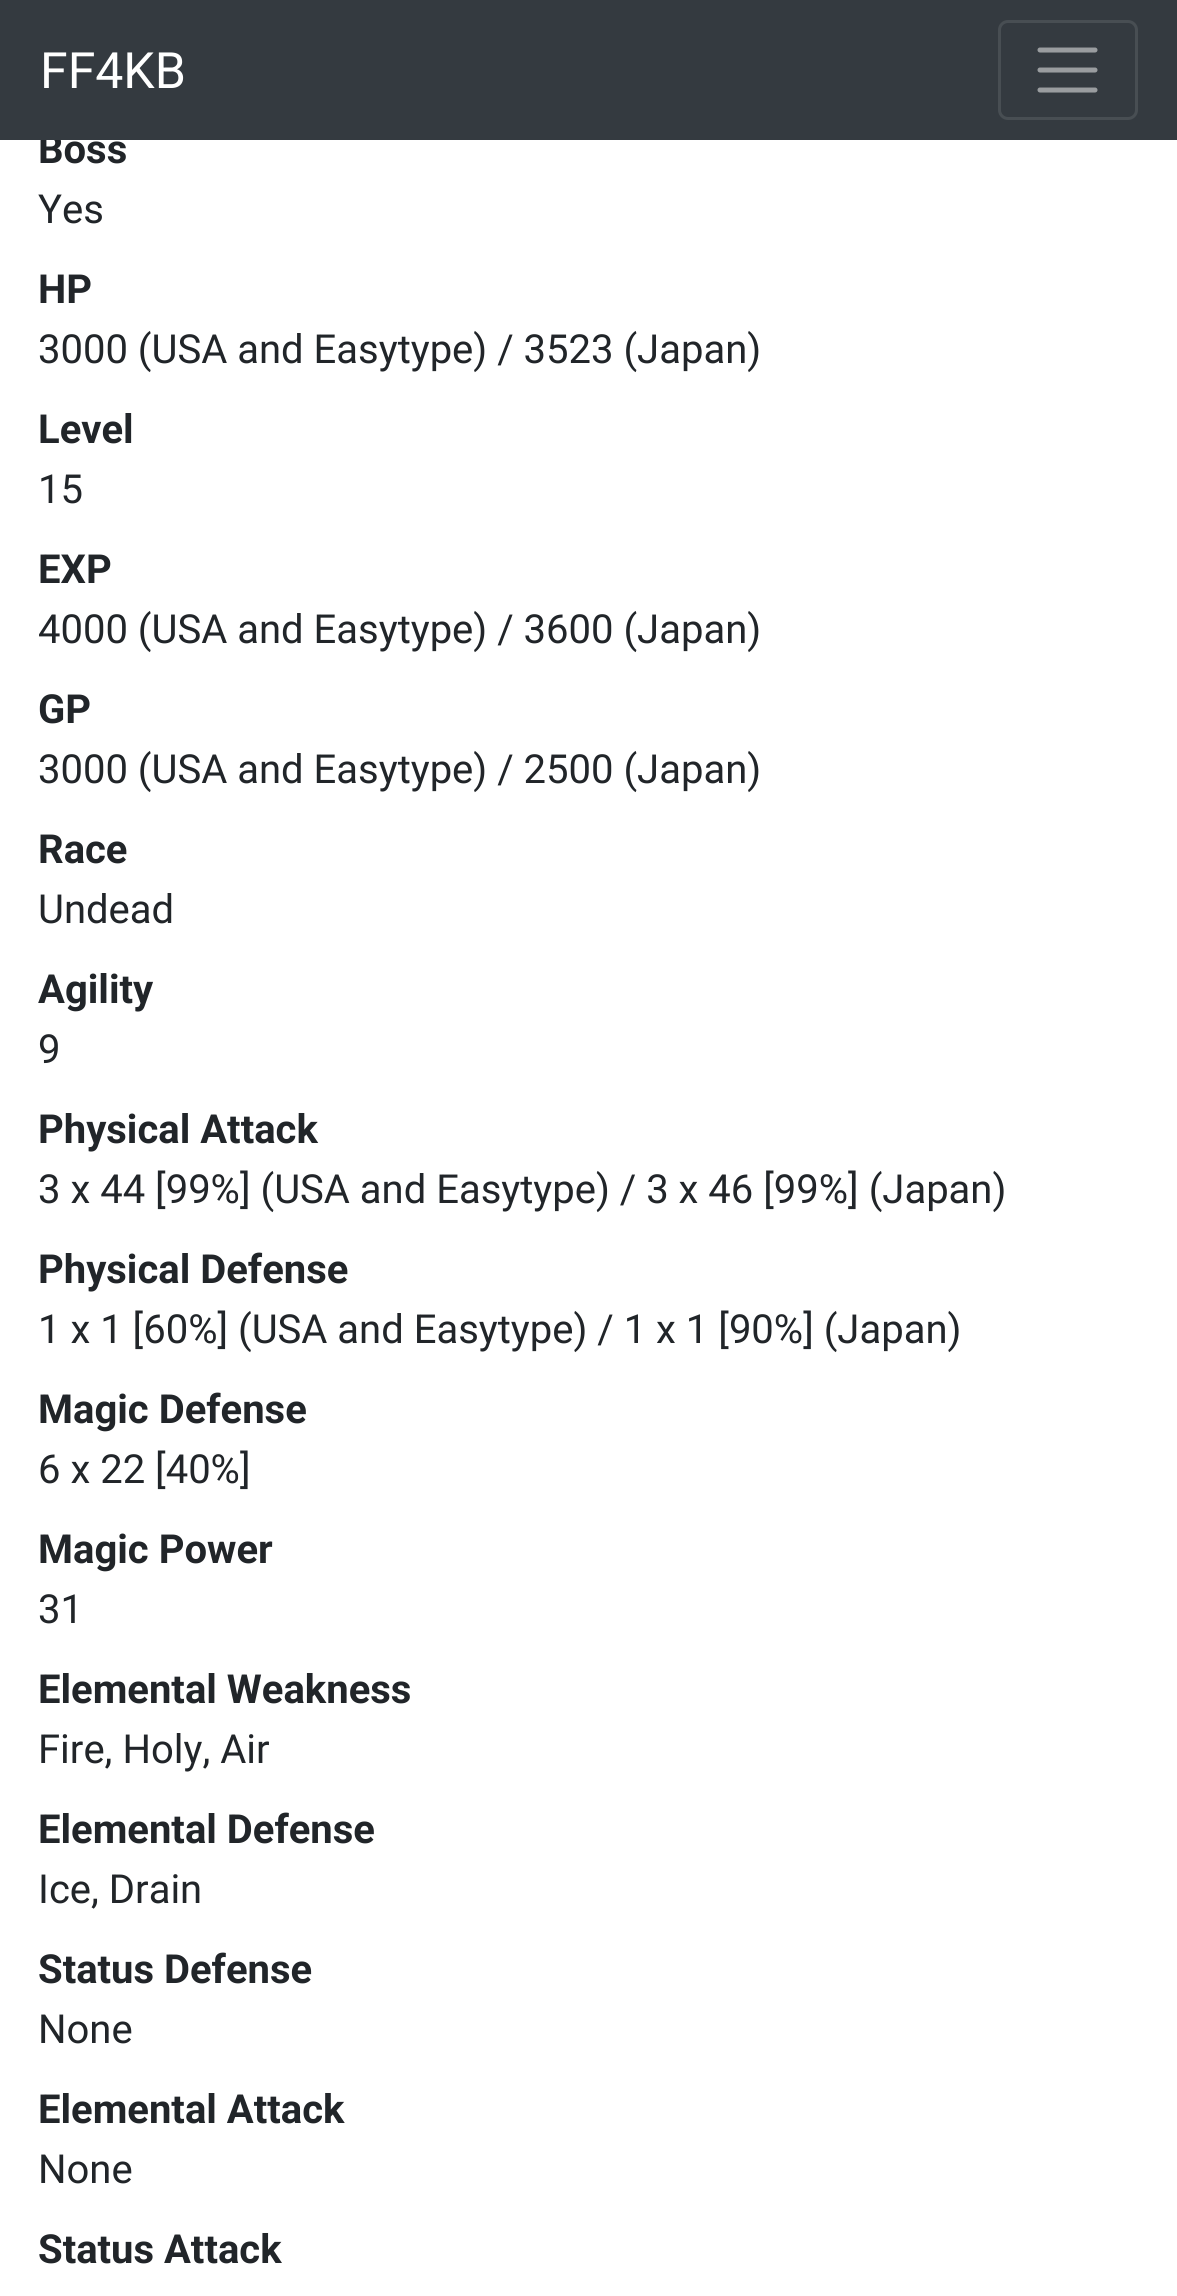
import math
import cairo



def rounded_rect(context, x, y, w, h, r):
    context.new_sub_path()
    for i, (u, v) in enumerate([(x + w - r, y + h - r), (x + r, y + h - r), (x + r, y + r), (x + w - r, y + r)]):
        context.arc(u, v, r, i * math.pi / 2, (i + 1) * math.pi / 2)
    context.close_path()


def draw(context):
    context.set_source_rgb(1, 1, 1)
    context.paint()
    context.select_font_face("Roboto", cairo.FontSlant.NORMAL, cairo.FontWeight.BOLD)
    context.set_font_size(40)
    context.set_source_rgb(33 / 255, 37 / 255, 41 / 255)
    context.move_to(38, 163)
    context.show_text("Boss")
    context.set_source_rgb(52 / 255, 58 / 255, 64 / 255)
    context.rectangle(0, 0, 1177, 140)
    context.fill()
    rounded_rect(context, 999.5, 21.5, 137, 97, 8.5)
    context.set_source_rgb(72 / 255, 78 / 255, 83 / 255)
    context.set_line_width(3)
    context.stroke()
    context.new_path()
    context.move_to(1040, 50)
    context.line_to(1095, 50)
    context.move_to(1040, 70)
    context.line_to(1095, 70)
    context.move_to(1040, 90)
    context.line_to(1095, 90)
    context.set_source_rgb(154 / 255, 157 / 255, 160 / 255)
    context.set_line_width(5)
    context.set_line_cap(cairo.LineCap.ROUND)
    context.stroke()
    context.select_font_face("Roboto")
    context.set_font_size(50)
    context.set_source_rgb(1, 1, 1)
    context.move_to(40, 88)
    context.show_text("FF4KB")
    context.set_font_size(40)
    context.set_source_rgb(33 / 255, 37 / 255, 41 / 255)
    context.move_to(38, 223)
    context.show_text("Yes")
    context.select_font_face("Roboto", cairo.FontSlant.NORMAL, cairo.FontWeight.BOLD)
    context.move_to(38, 303)
    context.show_text("HP")
    context.select_font_face("Roboto")
    context.move_to(38, 363)
    context.show_text("3000 (USA and Easytype) / 3523 (Japan)")
    context.select_font_face("Roboto", cairo.FontSlant.NORMAL, cairo.FontWeight.BOLD)
    context.move_to(38, 443)
    context.show_text("Level")
    context.select_font_face("Roboto")
    context.move_to(38, 503)
    context.show_text("15")
    context.select_font_face("Roboto", cairo.FontSlant.NORMAL, cairo.FontWeight.BOLD)
    context.move_to(38, 583)
    context.show_text("EXP")
    context.select_font_face("Roboto")
    context.move_to(38, 643)
    context.show_text("4000 (USA and Easytype) / 3600 (Japan)")
    context.select_font_face("Roboto", cairo.FontSlant.NORMAL, cairo.FontWeight.BOLD)
    context.move_to(38, 723)
    context.show_text("GP")
    context.select_font_face("Roboto")
    context.move_to(38, 783)
    context.show_text("3000 (USA and Easytype) / 2500 (Japan)")
    context.select_font_face("Roboto", cairo.FontSlant.NORMAL, cairo.FontWeight.BOLD)
    context.move_to(38, 863)
    context.show_text("Race")
    context.select_font_face("Roboto")
    context.move_to(38, 923)
    context.show_text("Undead")
    context.select_font_face("Roboto", cairo.FontSlant.NORMAL, cairo.FontWeight.BOLD)
    context.move_to(38, 1003)
    context.show_text("Agility")
    context.select_font_face("Roboto")
    context.move_to(38, 1063)
    context.show_text("9")
    context.select_font_face("Roboto", cairo.FontSlant.NORMAL, cairo.FontWeight.BOLD)
    context.move_to(38, 1143)
    context.show_text("Physical Attack")
    context.select_font_face("Roboto")
    context.move_to(38, 1203)
    context.show_text("3 x 44 [99%] (USA and Easytype) / 3 x 46 [99%] (Japan)")
    context.select_font_face("Roboto", cairo.FontSlant.NORMAL, cairo.FontWeight.BOLD)
    context.move_to(38, 1283)
    context.show_text("Physical Defense")
    context.select_font_face("Roboto")
    context.move_to(38, 1343)
    context.show_text("1 x 1 [60%] (USA and Easytype) / 1 x 1 [90%] (Japan)")
    context.select_font_face("Roboto", cairo.FontSlant.NORMAL, cairo.FontWeight.BOLD)
    context.move_to(38, 1423)
    context.show_text("Magic Defense")
    context.select_font_face("Roboto")
    context.move_to(38, 1483)
    context.show_text("6 x 22 [40%]")
    context.select_font_face("Roboto", cairo.FontSlant.NORMAL, cairo.FontWeight.BOLD)
    context.move_to(38, 1563)
    context.show_text("Magic Power")
    context.select_font_face("Roboto")
    context.move_to(38, 1623)
    context.show_text("31")
    context.select_font_face("Roboto", cairo.FontSlant.NORMAL, cairo.FontWeight.BOLD)
    context.move_to(38, 1703)
    context.show_text("Elemental Weakness")
    context.select_font_face("Roboto")
    context.move_to(38, 1763)
    context.show_text("Fire, Holy, Air")
    context.select_font_face("Roboto", cairo.FontSlant.NORMAL, cairo.FontWeight.BOLD)
    context.move_to(38, 1843)
    context.show_text("Elemental Defense")
    context.select_font_face("Roboto")
    context.move_to(38, 1903)
    context.show_text("Ice, Drain")
    context.select_font_face("Roboto", cairo.FontSlant.NORMAL, cairo.FontWeight.BOLD)
    context.move_to(38, 1983)
    context.show_text("Status Defense")
    context.select_font_face("Roboto")
    context.move_to(38, 2043)
    context.show_text("None")
    context.select_font_face("Roboto", cairo.FontSlant.NORMAL, cairo.FontWeight.BOLD)
    context.move_to(38, 2123)
    context.show_text("Elemental Attack")
    context.select_font_face("Roboto")
    context.move_to(38, 2183)
    context.show_text("None")
    context.select_font_face("Roboto", cairo.FontSlant.NORMAL, cairo.FontWeight.BOLD)
    context.move_to(38, 2263)
    context.show_text("Status Attack")


surface = cairo.ImageSurface(cairo.Format.RGB24, 1177, 2296)
context = cairo.Context(surface)
options = cairo.FontOptions()
options.set_hint_metrics(cairo.HintMetrics.OFF)
options.set_hint_style(cairo.HintStyle.NONE)
context.set_font_options(options)
context.set_miter_limit(4)
draw(context)
surface.write_to_png("out.png")
